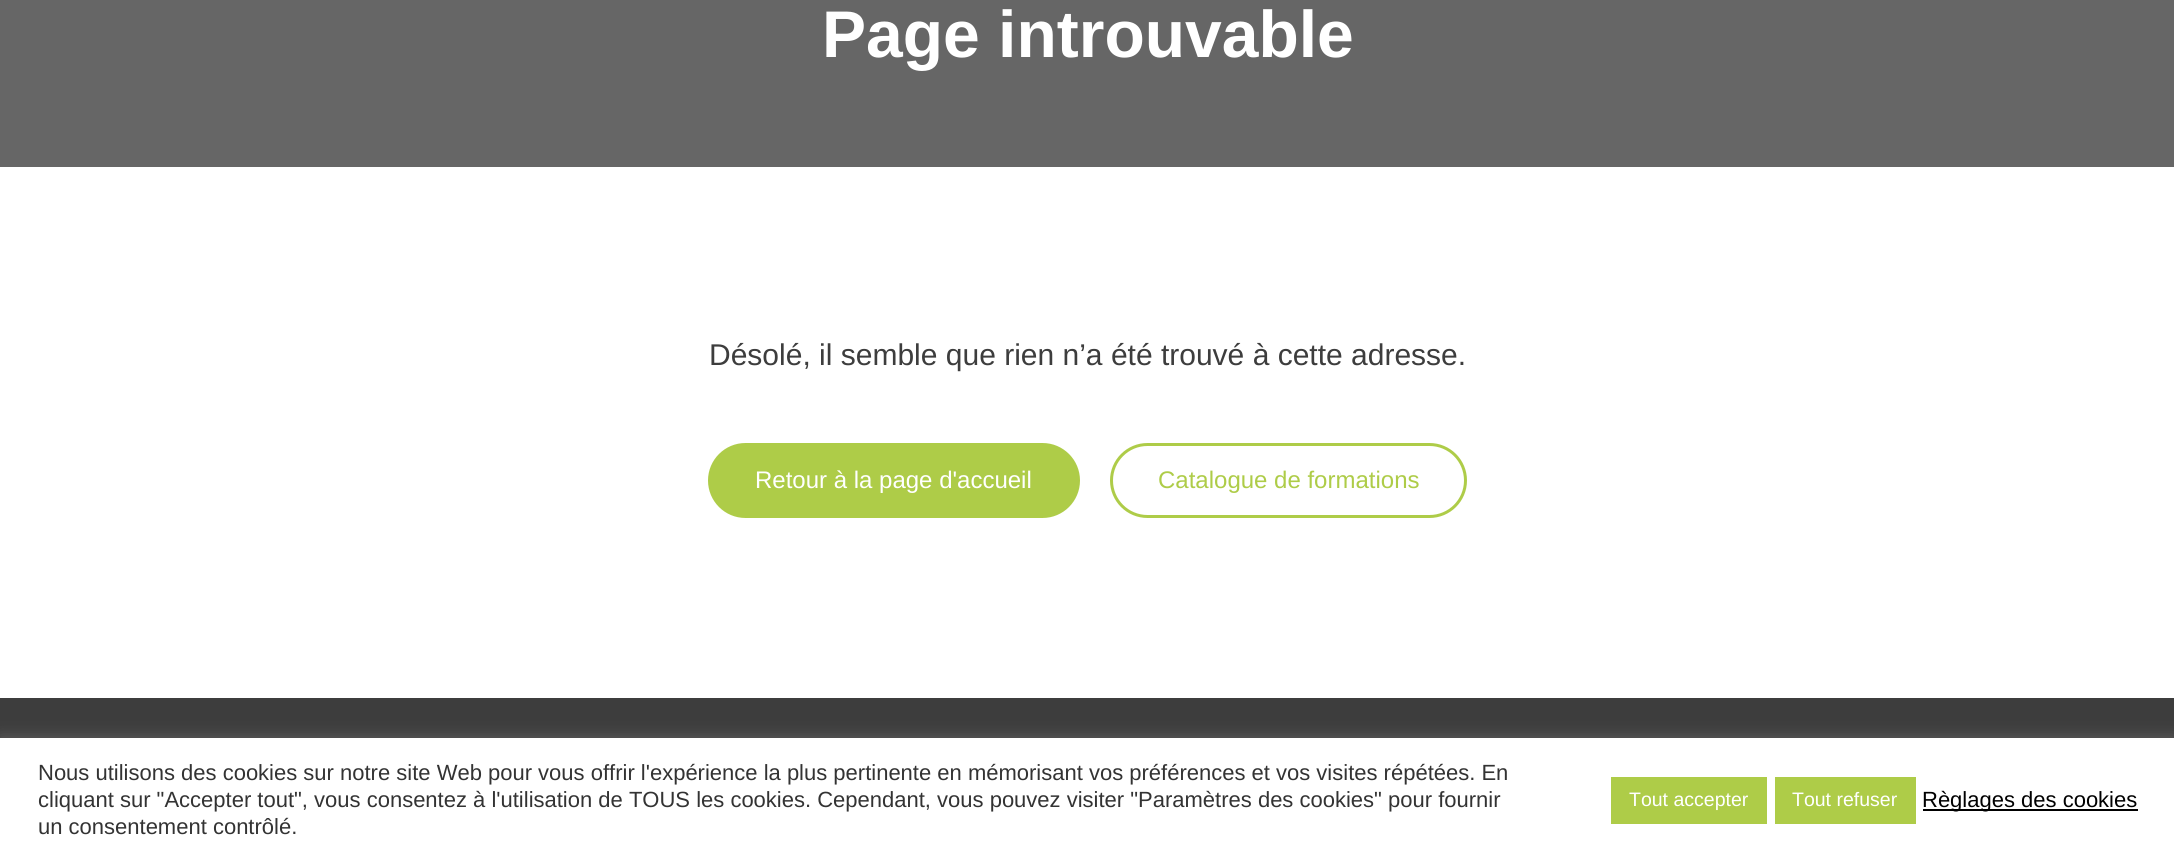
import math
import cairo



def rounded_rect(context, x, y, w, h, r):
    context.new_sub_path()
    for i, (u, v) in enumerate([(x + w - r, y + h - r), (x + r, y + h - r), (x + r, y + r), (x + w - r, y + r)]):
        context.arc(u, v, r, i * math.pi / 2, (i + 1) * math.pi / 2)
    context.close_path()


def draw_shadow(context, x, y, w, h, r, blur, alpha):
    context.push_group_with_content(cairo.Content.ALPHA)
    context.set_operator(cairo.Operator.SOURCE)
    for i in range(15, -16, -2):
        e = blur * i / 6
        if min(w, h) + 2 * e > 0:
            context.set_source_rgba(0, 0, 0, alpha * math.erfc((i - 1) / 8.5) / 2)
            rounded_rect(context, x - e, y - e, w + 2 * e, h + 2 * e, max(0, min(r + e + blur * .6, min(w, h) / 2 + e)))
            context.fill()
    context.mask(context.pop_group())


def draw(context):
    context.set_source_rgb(1, 1, 1)
    context.paint()
    context.set_source_rgb(102 / 255, 102 / 255, 102 / 255)
    context.rectangle(0, 0, 2174, 167)
    context.fill()
    context.set_source_rgb(174 / 255, 204 / 255, 72 / 255)
    rounded_rect(context, 709.5, 444.5, 369, 72, 36)
    context.fill_preserve()
    context.set_line_width(3)
    context.stroke()
    rounded_rect(context, 1111.5, 444.5, 354, 72, 36)
    context.stroke()
    context.set_source_rgb(61 / 255, 61 / 255, 61 / 255)
    context.rectangle(0, 698, 2174, 40)
    context.fill()
    context.set_source_rgb(172 / 255, 171 / 255, 171 / 255)
    draw_shadow(context, 0, 737, 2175, 123, 0, 7.5, 0.3)
    context.set_source_rgb(1, 1, 1)
    context.rectangle(0, 738, 2174, 122)
    context.fill()
    context.set_source_rgb(174 / 255, 204 / 255, 72 / 255)
    context.rectangle(1611, 777, 156, 47)
    context.fill()
    context.rectangle(1775, 777, 141, 47)
    context.fill()
    context.set_source_rgb(0, 0, 0)
    context.rectangle(1923, 809, 215, 2)
    context.fill()
    context.select_font_face("Liberation Sans", cairo.FontSlant.NORMAL, cairo.FontWeight.BOLD)
    context.set_font_size(66)
    context.set_source_rgb(1, 1, 1)
    context.move_to(822, 57)
    context.show_text("Page introuvable")
    context.select_font_face("Liberation Sans")
    context.set_font_size(30)
    context.set_source_rgb(61 / 255, 61 / 255, 61 / 255)
    context.move_to(709, 365)
    context.show_text("Désolé, il semble que rien n’a été trouvé à cette adresse.")
    context.set_font_size(24)
    context.set_source_rgb(1, 1, 1)
    context.move_to(755, 488)
    context.show_text("Retour à la page d'accueil")
    context.set_source_rgb(174 / 255, 204 / 255, 72 / 255)
    context.move_to(1158, 488)
    context.show_text("Catalogue de formations")
    context.set_font_size(22)
    context.set_source_rgb(51 / 255, 51 / 255, 51 / 255)
    context.move_to(38, 780)
    context.show_text("Nous utilisons des cookies sur notre site Web pour vous offrir l'expérience la plus pertinente en mémorisant vos préférences et vos visites répétées. En")
    context.move_to(38, 807)
    context.show_text("cliquant sur \"Accepter tout\", vous consentez à l'utilisation de TOUS les cookies. Cependant, vous pouvez visiter \"Paramètres des cookies\" pour fournir")
    context.move_to(38, 834)
    context.show_text("un consentement contrôlé.")
    context.set_font_size(19.5)
    context.set_source_rgb(1, 1, 1)
    context.move_to(1629, 806)
    context.show_text("Tout accepter")
    context.move_to(1792, 806)
    context.show_text("Tout refuser")
    context.set_font_size(22)
    context.set_source_rgb(0, 0, 0)
    context.move_to(1922, 807)
    context.show_text("Règlages des cookies")


surface = cairo.ImageSurface(cairo.Format.RGB24, 2174, 860)
context = cairo.Context(surface)
options = cairo.FontOptions()
options.set_hint_metrics(cairo.HintMetrics.OFF)
options.set_hint_style(cairo.HintStyle.NONE)
context.set_font_options(options)
context.set_miter_limit(4)
draw(context)
surface.write_to_png("out.png")
